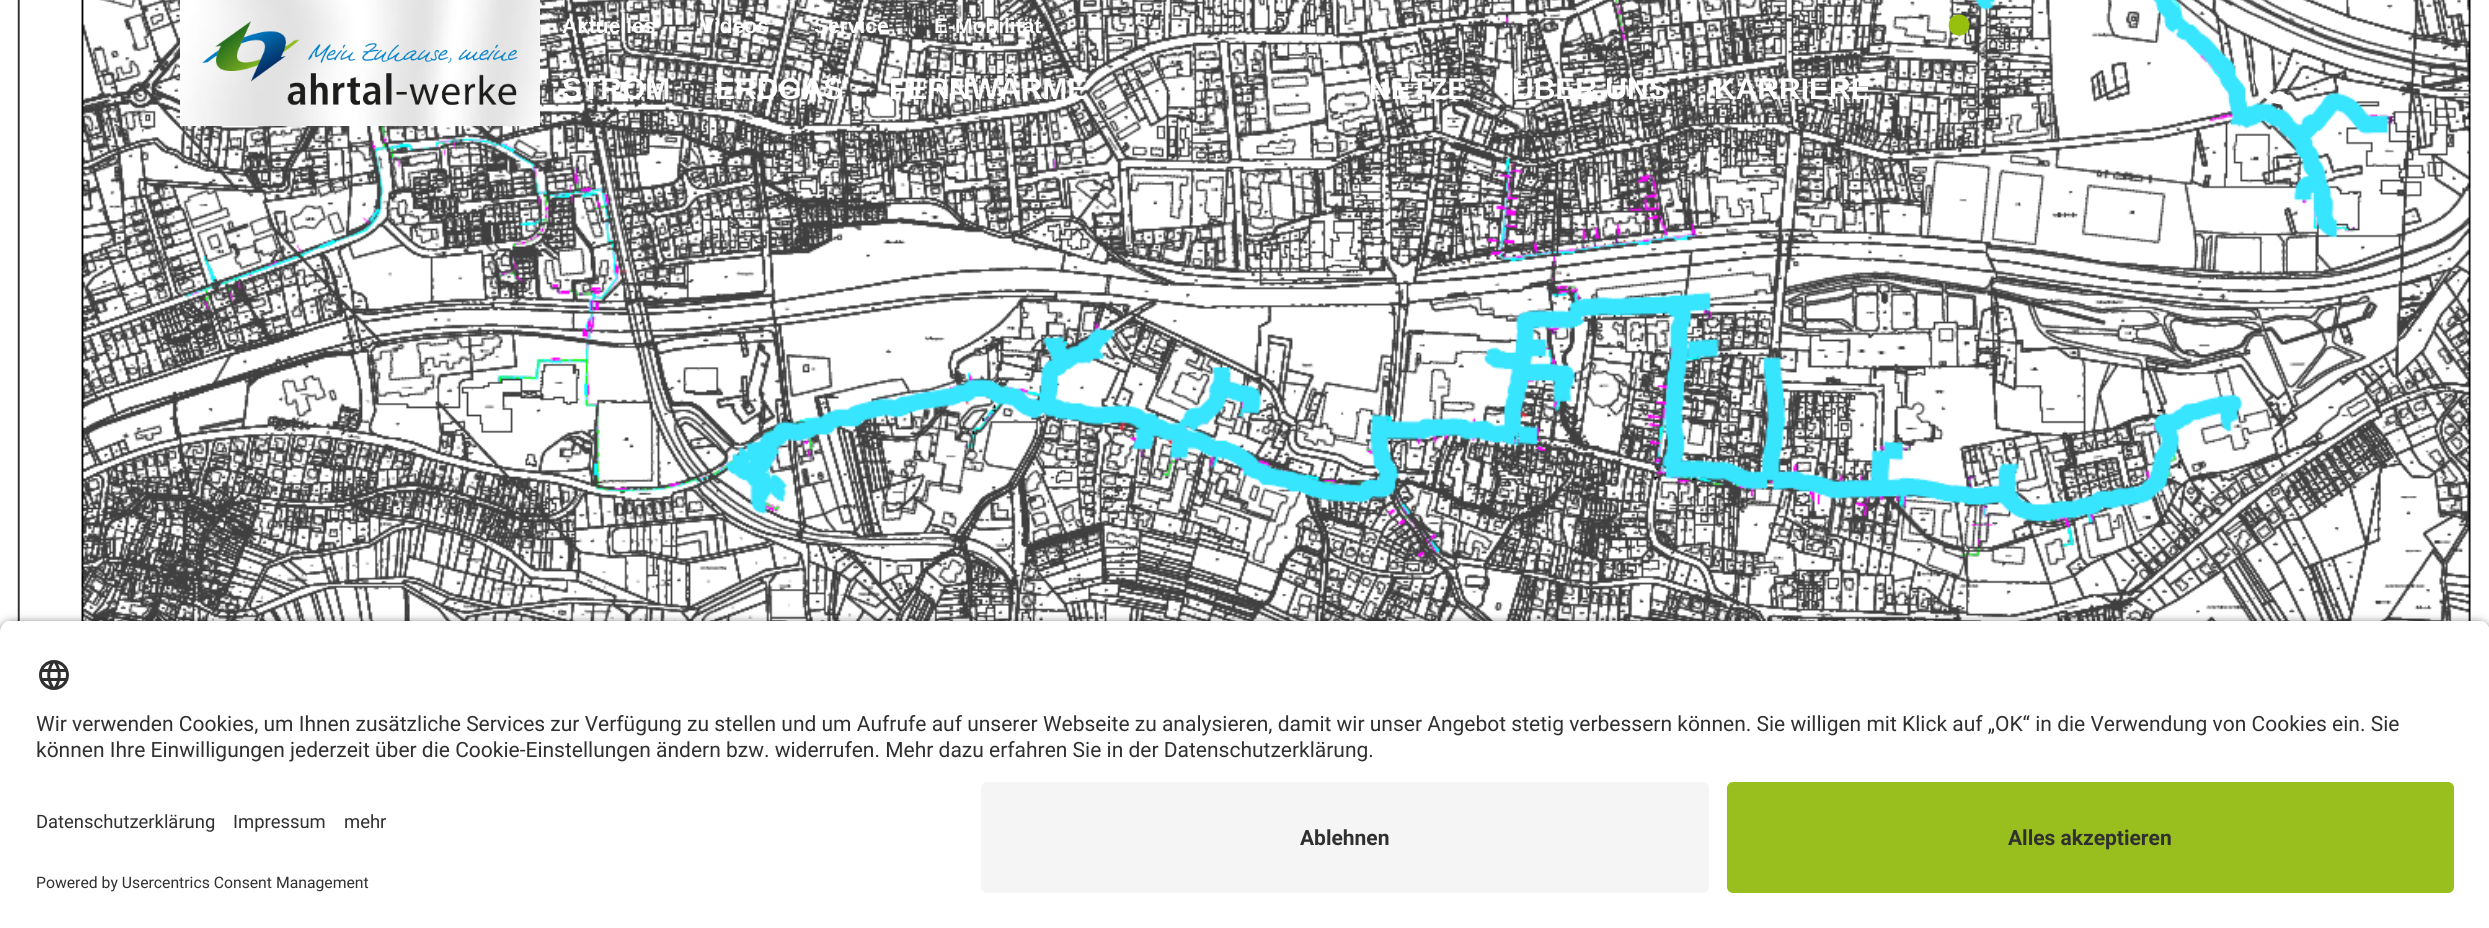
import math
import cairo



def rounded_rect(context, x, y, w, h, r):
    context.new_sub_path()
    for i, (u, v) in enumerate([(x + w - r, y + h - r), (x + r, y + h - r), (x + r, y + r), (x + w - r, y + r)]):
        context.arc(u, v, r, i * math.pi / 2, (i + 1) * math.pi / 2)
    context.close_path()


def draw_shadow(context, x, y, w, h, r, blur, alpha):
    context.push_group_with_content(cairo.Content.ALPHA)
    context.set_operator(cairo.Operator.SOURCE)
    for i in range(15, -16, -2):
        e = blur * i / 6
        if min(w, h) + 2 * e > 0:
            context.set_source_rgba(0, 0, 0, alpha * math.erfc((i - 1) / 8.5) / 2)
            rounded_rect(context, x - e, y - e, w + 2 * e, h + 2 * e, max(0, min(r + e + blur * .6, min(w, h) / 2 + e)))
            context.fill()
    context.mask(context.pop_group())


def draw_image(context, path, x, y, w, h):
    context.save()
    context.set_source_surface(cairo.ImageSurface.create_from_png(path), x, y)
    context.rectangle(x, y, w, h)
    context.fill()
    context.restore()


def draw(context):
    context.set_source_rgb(1, 1, 1)
    context.paint()
    draw_image(context, "images/1.png", 0, 0, 2489, 632)
    draw_image(context, "images/2.png", 180, 0, 360, 126)
    draw_image(context, "images/3.png", 202, 21, 316, 84)
    context.set_source_rgb(151 / 255, 191 / 255, 14 / 255)
    context.new_path()
    context.move_to(1959, 35.5)
    context.curve_to(1973, 35.5, 1972.5, 14.5, 1959, 14.5)
    context.curve_to(1945.5, 14.5, 1945, 35.5, 1959, 35.5)
    context.close_path()
    context.fill()
    draw_image(context, "images/4.png", 2254, 73, 34, 32)
    context.set_source_rgb(0, 0, 0)
    draw_shadow(context, 0, 624, 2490, 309, 12, 5, 0.8)
    context.save()
    context.new_path()
    context.move_to(12, 620)
    context.line_to(2478, 620)
    context.curve_to(2484.5, 620, 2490, 625.5, 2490, 632)
    context.line_to(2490, 770)
    context.line_to(0, 770)
    context.line_to(0, 632)
    context.curve_to(0, 625.5, 5.5, 620, 12, 620)
    context.close_path()
    context.clip()
    context.set_source_rgb(1, 1, 1)
    context.rectangle(0, 621, 2489, 149)
    context.fill()
    context.restore()
    draw_image(context, "images/5.png", 39, 660, 30, 30)
    context.set_source_rgb(1, 1, 1)
    context.rectangle(0, 770, 2489, 158)
    context.fill()
    context.set_source_rgb(245 / 255, 245 / 255, 245 / 255)
    rounded_rect(context, 981, 782, 728, 111, 6)
    context.fill()
    context.set_source_rgb(152 / 255, 191 / 255, 29 / 255)
    rounded_rect(context, 1727, 782, 727, 111, 6)
    context.fill()
    context.select_font_face("Liberation Sans", cairo.FontSlant.NORMAL, cairo.FontWeight.BOLD)
    context.set_font_size(21)
    context.set_source_rgb(1, 1, 1)
    context.move_to(562, 33)
    context.show_text("Aktuelles")
    context.move_to(700, 33)
    context.show_text("Videos")
    context.move_to(814, 33)
    context.show_text("Service")
    context.move_to(934, 33)
    context.show_text("E-Mobilität")
    context.set_font_size(30)
    context.move_to(562, 99)
    context.show_text("STROM")
    context.move_to(715, 99)
    context.show_text("ERDGAS")
    context.move_to(889, 99)
    context.show_text("FERNWÄRME")
    context.move_to(1369, 99)
    context.show_text("NETZE")
    context.move_to(1512, 99)
    context.show_text("ÜBER UNS")
    context.move_to(1714, 99)
    context.show_text("KARRIERE")
    context.select_font_face("Roboto")
    context.set_font_size(21)
    context.set_source_rgb(48 / 255, 48 / 255, 48 / 255)
    context.move_to(36, 731)
    context.show_text("Wir verwenden Cookies, um Ihnen zusätzliche Services zur Verfügung zu stellen und um Aufrufe auf unserer Webseite zu analysieren, damit wir unser Angebot stetig verbessern können. Sie willigen mit Klick auf „OK“ in die Verwendung von Cookies ein. Sie")
    context.move_to(36, 757)
    context.show_text("können Ihre Einwilligungen jederzeit über die Cookie-Einstellungen ändern bzw. widerrufen. Mehr dazu erfahren Sie in der Datenschutzerklärung.")
    context.set_font_size(18.4)
    context.move_to(36, 828)
    context.show_text("Datenschutzerklärung")
    context.move_to(233, 828)
    context.show_text("Impressum")
    context.move_to(344, 828)
    context.show_text("mehr")
    context.set_font_size(15.75)
    context.move_to(36, 888)
    context.show_text("Powered by Usercentrics Consent Management")
    context.select_font_face("Roboto", cairo.FontSlant.NORMAL, cairo.FontWeight.BOLD)
    context.set_font_size(21)
    context.move_to(1300, 845)
    context.show_text("Ablehnen")
    context.move_to(2008, 845)
    context.show_text("Alles akzeptieren")


surface = cairo.ImageSurface(cairo.Format.RGB24, 2489, 928)
context = cairo.Context(surface)
options = cairo.FontOptions()
options.set_hint_metrics(cairo.HintMetrics.OFF)
options.set_hint_style(cairo.HintStyle.NONE)
context.set_font_options(options)
context.set_miter_limit(4)
draw(context)
surface.write_to_png("out.png")
